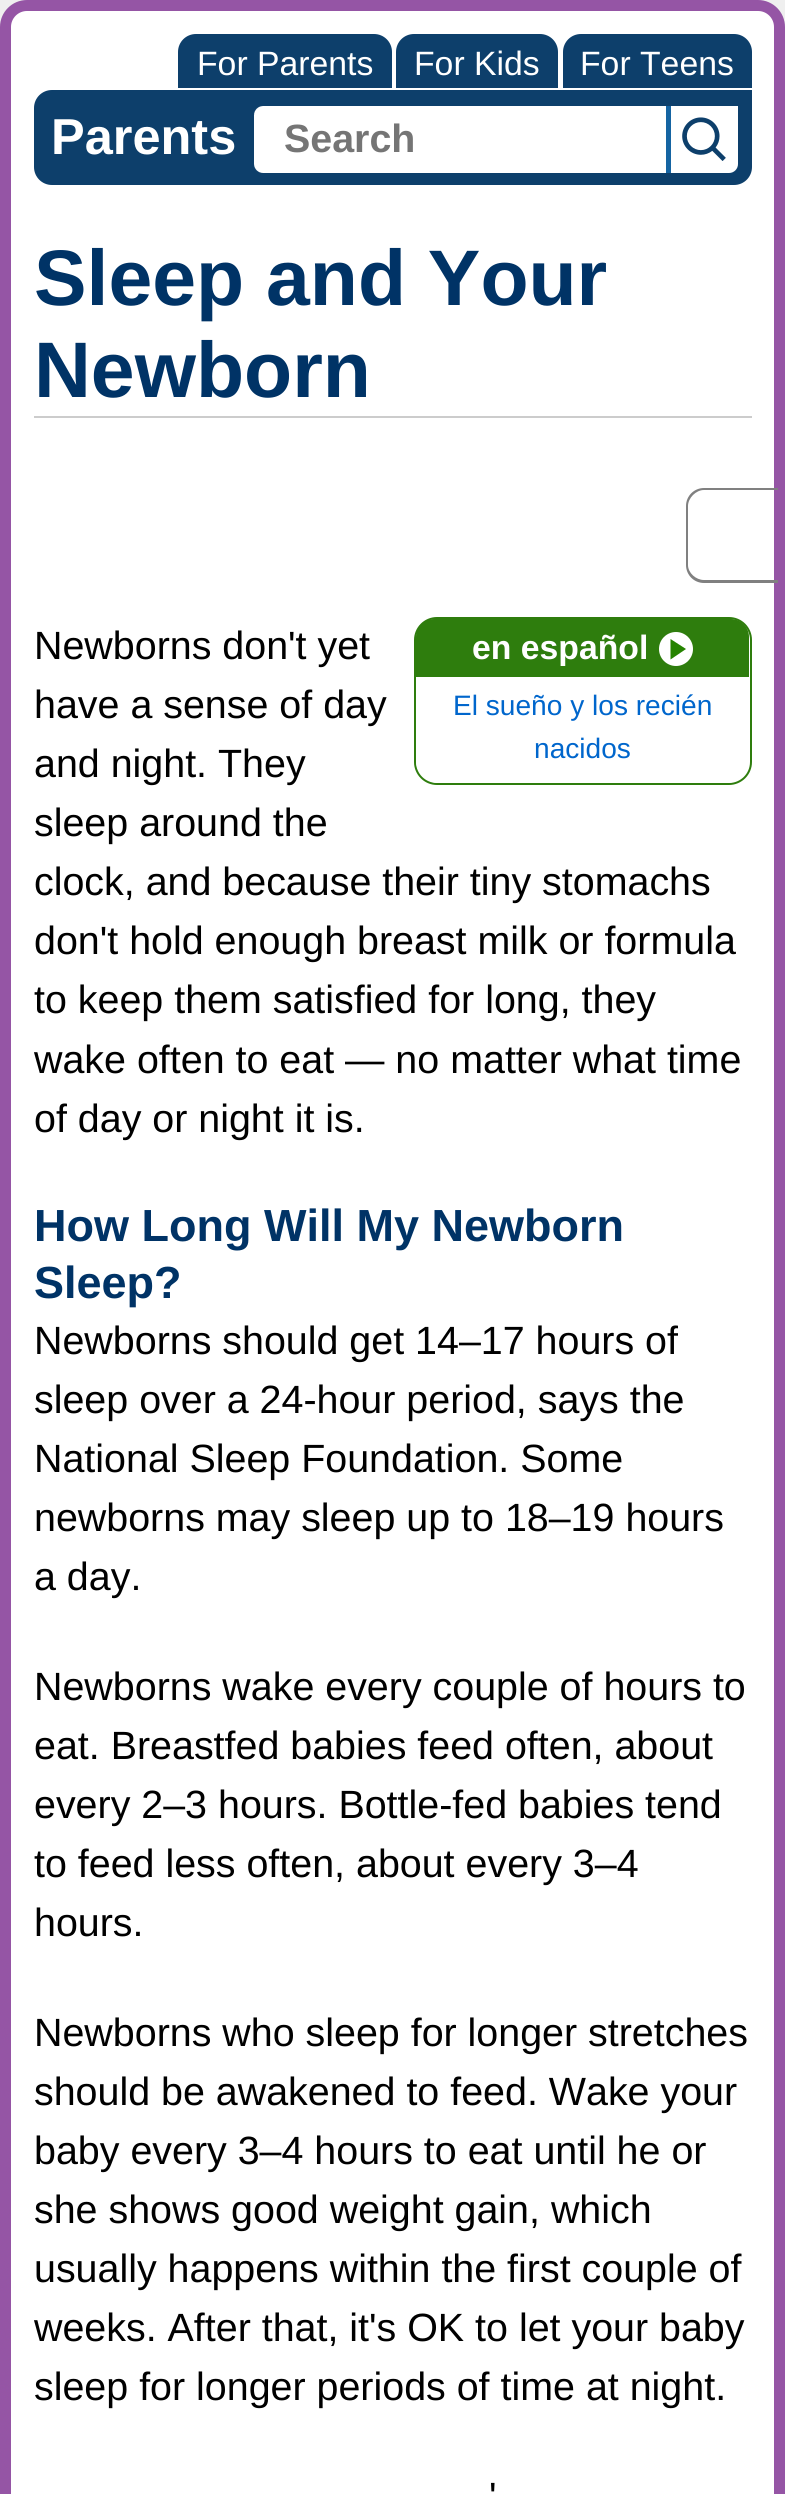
import math
import cairo



def rounded_rect(context, x, y, w, h, r):
    context.new_sub_path()
    for i, (u, v) in enumerate([(x + w - r, y + h - r), (x + r, y + h - r), (x + r, y + r), (x + w - r, y + r)]):
        context.arc(u, v, r, i * math.pi / 2, (i + 1) * math.pi / 2)
    context.close_path()


def draw_image(context, path, x, y, w, h):
    context.save()
    context.set_source_surface(cairo.ImageSurface.create_from_png(path), x, y)
    context.rectangle(x, y, w, h)
    context.fill()
    context.restore()


def draw(context):
    context.set_source_rgb(239 / 255, 239 / 255, 239 / 255)
    context.paint()
    context.set_source_rgb(1, 1, 1)
    rounded_rect(context, 5.5, 5.5, 774, 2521, 21.5)
    context.fill_preserve()
    context.set_source_rgb(149 / 255, 85 / 255, 165 / 255)
    context.set_line_width(11)
    context.stroke()
    context.set_source_rgb(13 / 255, 63 / 255, 107 / 255)
    context.new_path()
    context.move_to(196, 34)
    context.line_to(374, 34)
    context.curve_to(384, 34, 392, 42, 392, 52)
    context.line_to(392, 88)
    context.line_to(178, 88)
    context.line_to(178, 52)
    context.curve_to(178, 42, 186, 34, 196, 34)
    context.close_path()
    context.fill()
    context.new_path()
    context.move_to(414, 34)
    context.line_to(540, 34)
    context.curve_to(550, 34, 558, 42, 558, 52)
    context.line_to(558, 88)
    context.line_to(396, 88)
    context.line_to(396, 52)
    context.curve_to(396, 42, 404, 34, 414, 34)
    context.close_path()
    context.fill()
    context.new_path()
    context.move_to(581, 34)
    context.line_to(734, 34)
    context.curve_to(744, 34, 752, 42, 752, 52)
    context.line_to(752, 88)
    context.line_to(563, 88)
    context.line_to(563, 52)
    context.curve_to(563, 42, 571, 34, 581, 34)
    context.close_path()
    context.fill()
    context.new_path()
    context.move_to(52, 90)
    context.line_to(752, 90)
    context.line_to(752, 167)
    context.curve_to(752, 177, 744, 185, 734, 185)
    context.line_to(52, 185)
    context.curve_to(42, 185, 34, 177, 34, 167)
    context.line_to(34, 108)
    context.curve_to(34, 98, 42, 90, 52, 90)
    context.close_path()
    context.fill()
    context.set_source_rgb(1, 1, 1)
    context.new_path()
    context.move_to(263, 113)
    context.line_to(659, 113)
    context.line_to(659, 166)
    context.line_to(263, 166)
    context.curve_to(262, 166, 261, 165, 261, 164)
    context.line_to(261, 115)
    context.curve_to(261, 114, 262, 113, 263, 113)
    context.close_path()
    context.fill_preserve()
    context.set_line_width(14)
    context.stroke()
    context.set_source_rgb(21 / 255, 100 / 255, 162 / 255)
    context.rectangle(666, 106, 5, 67)
    context.fill()
    context.set_source_rgb(1, 1, 1)
    context.new_path()
    context.move_to(671, 106)
    context.line_to(738, 106)
    context.line_to(738, 164)
    context.curve_to(738, 169, 734, 173, 729, 173)
    context.line_to(671, 173)
    context.close_path()
    context.fill()
    draw_image(context, "images/1.png", 682, 117, 44, 44)
    context.set_source_rgb(204 / 255, 204 / 255, 204 / 255)
    context.rectangle(34, 416, 718, 2)
    context.fill()
    context.set_source_rgb(128 / 255, 128 / 255, 128 / 255)
    context.set_fill_rule(cairo.FillRule.EVEN_ODD)
    context.new_path()
    context.move_to(704, 488)
    context.line_to(778, 488)
    context.line_to(778, 583)
    context.line_to(704, 583)
    context.curve_to(694, 583, 686, 575, 686, 565)
    context.line_to(686, 506)
    context.curve_to(686, 496, 694, 488, 704, 488)
    context.close_path()
    context.move_to(704, 490)
    context.line_to(778, 490)
    context.line_to(778, 580)
    context.line_to(704, 580)
    context.curve_to(696, 580, 688, 573, 688, 565)
    context.line_to(688, 506)
    context.curve_to(688, 498, 696, 490, 704, 490)
    context.close_path()
    context.fill()
    rounded_rect(context, 415, 618, 336, 166, 22)
    context.set_source_rgb(46 / 255, 125 / 255, 13 / 255)
    context.set_line_width(2)
    context.stroke()
    context.new_path()
    context.move_to(434, 619)
    context.line_to(731, 619)
    context.curve_to(741, 619, 749, 627, 749, 637)
    context.line_to(749, 677)
    context.line_to(416, 677)
    context.line_to(416, 637)
    context.curve_to(416, 627, 424, 619, 434, 619)
    context.close_path()
    context.fill()
    context.set_source_rgb(1, 1, 1)
    context.arc(676, 649, 17, 0, 2 * math.pi)
    context.fill()
    context.set_source_rgb(37 / 255, 131 / 255, 0)
    context.new_path()
    context.move_to(670.5, 639)
    context.line_to(670.5, 659.5)
    context.line_to(686, 649)
    context.close_path()
    context.fill()
    context.set_source_rgb(1, 1, 1)
    context.new_path()
    context.move_to(416, 677)
    context.line_to(749, 677)
    context.line_to(749, 760)
    context.curve_to(749, 772.5, 738.5, 783, 726, 783)
    context.line_to(439, 783)
    context.curve_to(426.5, 783, 416, 772.5, 416, 760)
    context.close_path()
    context.fill()
    context.select_font_face("Liberation Sans")
    context.set_font_size(33.75)
    context.move_to(197, 75)
    context.show_text("For Parents")
    context.move_to(414, 75)
    context.show_text("For Kids")
    context.move_to(580, 75)
    context.show_text("For Teens")
    context.select_font_face("Liberation Sans", cairo.FontSlant.NORMAL, cairo.FontWeight.BOLD)
    context.set_font_size(50.5)
    context.move_to(51, 154)
    context.show_text("Parents")
    context.set_font_size(39.4)
    context.set_source_rgb(117 / 255, 117 / 255, 117 / 255)
    context.move_to(284, 152)
    context.show_text("Search")
    context.set_font_size(78.75)
    context.set_source_rgb(0, 51 / 255, 102 / 255)
    context.move_to(34, 305)
    context.show_text("Sleep and Your")
    context.move_to(34, 397)
    context.show_text("Newborn")
    context.select_font_face("Liberation Sans")
    context.set_font_size(39.4)
    context.set_source_rgb(0, 0, 0)
    context.move_to(34, 659)
    context.show_text("Newborns don't yet")
    context.move_to(34, 718)
    context.show_text("have a sense of day")
    context.move_to(34, 777)
    context.show_text("and night. They")
    context.move_to(34, 836)
    context.show_text("sleep around the")
    context.move_to(34, 895)
    context.show_text("clock, and because their tiny stomachs")
    context.move_to(34, 954)
    context.show_text("don't hold enough breast milk or formula")
    context.move_to(34, 1013)
    context.show_text("to keep them satisfied for long, they")
    context.move_to(34, 1073)
    context.show_text("wake often to eat — no matter what time")
    context.move_to(34, 1132)
    context.show_text("of day or night it is.")
    context.select_font_face("Liberation Sans", cairo.FontSlant.NORMAL, cairo.FontWeight.BOLD)
    context.set_font_size(45)
    context.set_source_rgb(0, 51 / 255, 102 / 255)
    context.move_to(34, 1241)
    context.show_text("How Long Will My Newborn")
    context.move_to(34, 1298)
    context.show_text("Sleep?")
    context.select_font_face("Liberation Sans")
    context.set_font_size(39.4)
    context.set_source_rgb(0, 0, 0)
    context.move_to(34, 1354)
    context.show_text("Newborns should get 14–17 hours of")
    context.move_to(34, 1413)
    context.show_text("sleep over a 24-hour period, says the")
    context.move_to(34, 1472)
    context.show_text("National Sleep Foundation. Some")
    context.move_to(34, 1531)
    context.show_text("newborns may sleep up to 18–19 hours")
    context.move_to(34, 1590)
    context.show_text("a day.")
    context.move_to(34, 1700)
    context.show_text("Newborns wake every couple of hours to")
    context.move_to(34, 1759)
    context.show_text("eat. Breastfed babies feed often, about")
    context.move_to(34, 1818)
    context.show_text("every 2–3 hours. Bottle-fed babies tend")
    context.move_to(34, 1877)
    context.show_text("to feed less often, about every 3–4")
    context.move_to(34, 1936)
    context.show_text("hours.")
    context.move_to(34, 2046)
    context.show_text("Newborns who sleep for longer stretches")
    context.move_to(34, 2105)
    context.show_text("should be awakened to feed. Wake your")
    context.move_to(34, 2164)
    context.show_text("baby every 3–4 hours to eat until he or")
    context.move_to(34, 2223)
    context.show_text("she shows good weight gain, which")
    context.move_to(34, 2282)
    context.show_text("usually happens within the first couple of")
    context.move_to(34, 2341)
    context.show_text("weeks. After that, it's OK to let your baby")
    context.move_to(34, 2400)
    context.show_text("sleep for longer periods of time at night.")
    context.move_to(489, 2510)
    context.show_text("'")
    context.select_font_face("Liberation Sans", cairo.FontSlant.NORMAL, cairo.FontWeight.BOLD)
    context.set_font_size(33.75)
    context.set_source_rgb(1, 1, 1)
    context.move_to(472, 659)
    context.show_text("en español")
    context.select_font_face("Liberation Sans")
    context.set_font_size(28.1)
    context.set_source_rgb(0, 102 / 255, 204 / 255)
    context.move_to(453, 715)
    context.show_text("El sueño y los recién")
    context.move_to(534, 758)
    context.show_text("nacidos")


surface = cairo.ImageSurface(cairo.Format.RGB24, 785, 2494)
context = cairo.Context(surface)
options = cairo.FontOptions()
options.set_hint_metrics(cairo.HintMetrics.OFF)
options.set_hint_style(cairo.HintStyle.NONE)
context.set_font_options(options)
context.set_miter_limit(4)
draw(context)
surface.write_to_png("out.png")
